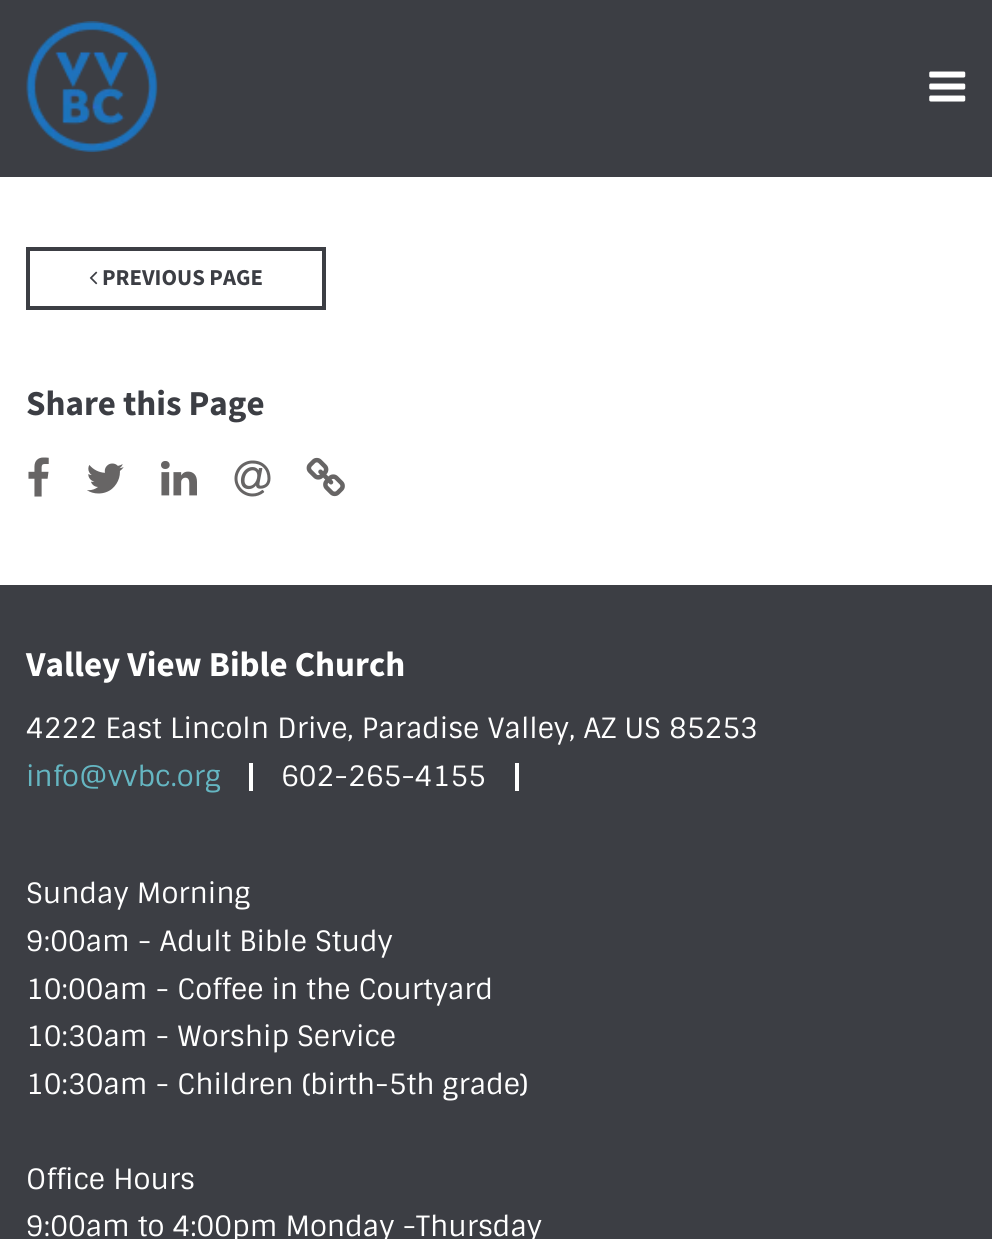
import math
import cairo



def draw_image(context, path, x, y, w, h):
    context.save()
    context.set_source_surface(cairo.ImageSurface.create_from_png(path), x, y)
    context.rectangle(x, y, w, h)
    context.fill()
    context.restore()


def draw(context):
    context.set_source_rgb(1, 1, 1)
    context.paint()
    context.set_source_rgb(60 / 255, 62 / 255, 68 / 255)
    context.rectangle(0, 0, 992, 177)
    context.fill()
    draw_image(context, "images/1.png", 26, 21, 132, 132)
    draw_image(context, "images/2.png", 929, 71, 37, 31)
    context.rectangle(28, 249, 296, 59)
    context.set_line_width(4)
    context.stroke()
    draw_image(context, "images/3.png", 89, 271, 9, 14)
    draw_image(context, "images/4.png", 28, 457, 21, 40)
    draw_image(context, "images/5.png", 87, 463, 37, 31)
    draw_image(context, "images/6.png", 161, 461, 36, 35)
    draw_image(context, "images/7.png", 234, 460, 37, 37)
    draw_image(context, "images/8.png", 306, 457, 39, 40)
    context.rectangle(0, 585, 992, 654)
    context.fill()
    context.set_source_rgb(1, 1, 1)
    context.rectangle(249, 763, 4, 28)
    context.fill()
    context.rectangle(515, 763, 4, 28)
    context.fill()
    context.select_font_face("Source Sans Pro", cairo.FontSlant.NORMAL, cairo.FontWeight.BOLD)
    context.set_font_size(22.75)
    context.set_source_rgb(60 / 255, 62 / 255, 68 / 255)
    context.move_to(102, 285)
    context.show_text("PREVIOUS PAGE")
    context.set_font_size(35)
    context.move_to(26, 415)
    context.show_text("Share this Page")
    context.set_source_rgb(1, 1, 1)
    context.move_to(26, 676)
    context.show_text("Valley View Bible Church")
    context.select_font_face("Sintony")
    context.set_font_size(28)
    context.move_to(26, 738)
    context.show_text("4222 East Lincoln Drive, Paradise Valley, AZ US 85253")
    context.set_source_rgb(101 / 255, 182 / 255, 194 / 255)
    context.move_to(26, 786)
    context.show_text("info@vvbc.org")
    context.set_source_rgb(1, 1, 1)
    context.move_to(281, 786)
    context.show_text("602-265-4155")
    context.move_to(26, 903)
    context.show_text("Sunday Morning")
    context.move_to(26, 951)
    context.show_text("9:00am - Adult Bible Study")
    context.move_to(26, 999)
    context.show_text("10:00am - Coffee in the Courtyard")
    context.move_to(26, 1046)
    context.show_text("10:30am - Worship Service")
    context.move_to(26, 1094)
    context.show_text("10:30am - Children (birth-5th grade)")
    context.move_to(26, 1189)
    context.show_text("Office Hours")
    context.move_to(26, 1236)
    context.show_text("9:00am to 4:00pm Monday -Thursday")


surface = cairo.ImageSurface(cairo.Format.RGB24, 992, 1239)
context = cairo.Context(surface)
options = cairo.FontOptions()
options.set_hint_metrics(cairo.HintMetrics.OFF)
options.set_hint_style(cairo.HintStyle.NONE)
context.set_font_options(options)
context.set_miter_limit(4)
draw(context)
surface.write_to_png("out.png")
